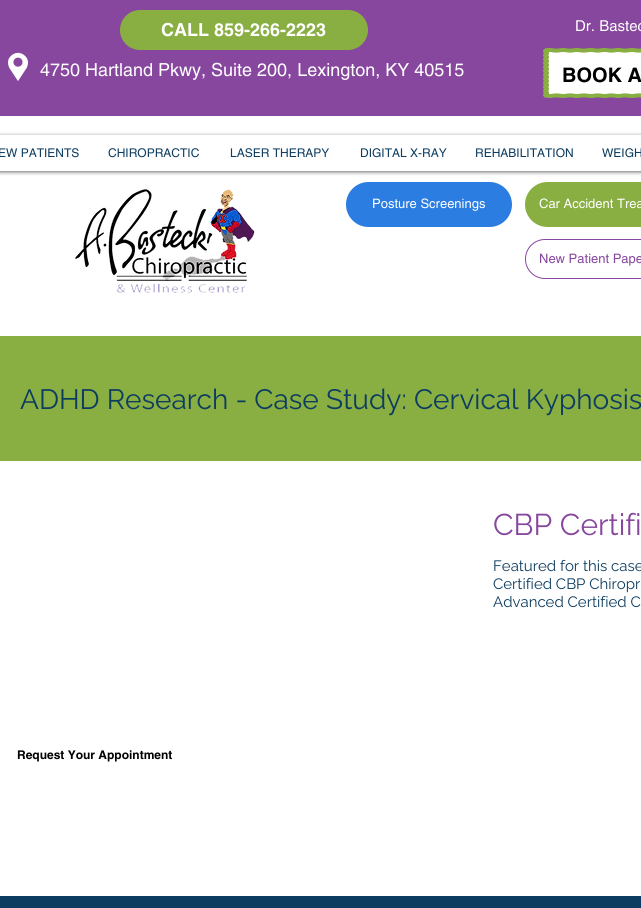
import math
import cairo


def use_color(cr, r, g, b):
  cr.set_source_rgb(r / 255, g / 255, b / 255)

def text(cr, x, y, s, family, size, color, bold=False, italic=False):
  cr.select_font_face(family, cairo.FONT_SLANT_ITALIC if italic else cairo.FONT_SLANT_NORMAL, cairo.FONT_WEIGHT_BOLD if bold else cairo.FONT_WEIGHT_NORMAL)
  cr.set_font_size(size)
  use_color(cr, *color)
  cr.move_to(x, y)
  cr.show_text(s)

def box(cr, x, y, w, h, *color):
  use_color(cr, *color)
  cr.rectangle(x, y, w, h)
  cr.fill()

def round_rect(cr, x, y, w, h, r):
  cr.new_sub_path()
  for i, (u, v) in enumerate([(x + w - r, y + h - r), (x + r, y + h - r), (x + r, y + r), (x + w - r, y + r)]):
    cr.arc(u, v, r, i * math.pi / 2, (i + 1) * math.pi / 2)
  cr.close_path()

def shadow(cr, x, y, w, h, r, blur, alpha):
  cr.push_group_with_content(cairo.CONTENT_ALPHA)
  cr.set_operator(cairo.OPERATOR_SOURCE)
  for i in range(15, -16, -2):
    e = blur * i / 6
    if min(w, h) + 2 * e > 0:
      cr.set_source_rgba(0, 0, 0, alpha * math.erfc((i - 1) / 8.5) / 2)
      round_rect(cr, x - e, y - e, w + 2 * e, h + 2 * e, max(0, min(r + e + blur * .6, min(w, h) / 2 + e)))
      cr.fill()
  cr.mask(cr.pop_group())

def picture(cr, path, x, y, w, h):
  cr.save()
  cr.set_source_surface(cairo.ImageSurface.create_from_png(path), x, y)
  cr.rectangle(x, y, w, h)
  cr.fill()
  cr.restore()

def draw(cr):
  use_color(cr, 255, 255, 255)
  cr.paint()
  box(cr, 0, 0, 641, 116, 135, 71, 158)
  use_color(cr, 137, 174, 66)
  round_rect(cr, 120, 10, 248, 40, 20)
  cr.fill()
  picture(cr, "img_01.png", 8, 52, 20, 29)
  picture(cr, "img_02.png", 543, 48, 98, 50)
  cr.save()
  cr.set_fill_rule(cairo.FILL_RULE_EVEN_ODD)
  cr.new_path()
  cr.move_to(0, 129)
  cr.line_to(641, 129)
  cr.line_to(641, 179)
  cr.line_to(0, 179)
  cr.close_path()
  cr.move_to(-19, 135)
  cr.line_to(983, 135)
  cr.curve_to(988.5, 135, 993, 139.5, 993, 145)
  cr.line_to(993, 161)
  cr.curve_to(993, 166.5, 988.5, 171, 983, 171)
  cr.line_to(-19, 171)
  cr.curve_to(-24.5, 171, -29, 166.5, -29, 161)
  cr.line_to(-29, 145)
  cr.curve_to(-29, 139.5, -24.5, 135, -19, 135)
  cr.close_path()
  cr.clip()
  use_color(cr, 0, 0, 0)
  shadow(cr, -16, 136, 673, 36, 10, 2, 0.6)
  cr.restore()
  picture(cr, "img_03.png", 75, 189, 180, 104)
  use_color(cr, 43, 125, 225)
  round_rect(cr, 346, 182, 166, 45, 22.5)
  cr.fill()
  use_color(cr, 137, 174, 66)
  round_rect(cr, 525, 182, 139, 45, 22.5)
  cr.fill()
  round_rect(cr, 525.5, 239.5, 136, 39, 19.5)
  use_color(cr, 135, 71, 158)
  cr.set_line_width(1)
  cr.stroke()
  box(cr, 0, 336, 641, 125, 137, 174, 66)
  box(cr, 0, 896, 641, 12, 12, 60, 96)
  text(cr, 161, 36, "CALL 859-266-2223", "helvetica", 18, (255, 255, 255), bold=True)
  text(cr, 40, 76, "4750 Hartland Pkwy, Suite 200, Lexington, KY 40515", "helvetica", 18, (255, 255, 255))
  text(cr, 575, 31, "Dr. Bastec", "helvetica", 15, (255, 255, 255))
  text(cr, 562, 82, "BOOK A", "helvetica", 20, (0, 0, 0), bold=True)
  text(cr, -2, 157, "EW PATIENTS", "helvetica", 12, (12, 60, 96))
  text(cr, 108, 157, "CHIROPRACTIC", "helvetica", 12, (12, 60, 96))
  text(cr, 230, 157, "LASER THERAPY", "helvetica", 12, (12, 60, 96))
  text(cr, 360, 157, "DIGITAL X-RAY", "helvetica", 12, (12, 60, 96))
  text(cr, 475, 157, "REHABILITATION", "helvetica", 12, (12, 60, 96))
  text(cr, 602, 157, "WEIGH", "helvetica", 12, (12, 60, 96))
  text(cr, 372, 208, "Posture Screenings", "helvetica", 13, (255, 255, 255))
  text(cr, 539, 208, "Car Accident Trea", "helvetica", 13, (255, 255, 255))
  text(cr, 539, 263, "New Patient Pape", "helvetica", 13, (135, 71, 158))
  text(cr, 20, 409, "ADHD Research - Case Study: Cervical Kyphosis", "Raleway", 28, (12, 60, 96))
  text(cr, 493, 535, "CBP Certifi", "Raleway", 30, (135, 71, 158))
  text(cr, 493, 571, "Featured for this case", "Raleway", 15, (12, 60, 96))
  text(cr, 493, 589, "Certified CBP Chiropr", "Raleway", 15, (12, 60, 96))
  text(cr, 493, 607, "Advanced Certified C", "Raleway", 15, (12, 60, 96))
  text(cr, 17, 759, "Request Your Appointment", "helvetica", 12, (0, 0, 0), bold=True)


surface = cairo.ImageSurface(cairo.FORMAT_RGB24, 641, 908)
cr = cairo.Context(surface)
options = cairo.FontOptions()
options.set_hint_metrics(cairo.HINT_METRICS_OFF)
options.set_hint_style(cairo.HINT_STYLE_NONE)
cr.set_font_options(options)
cr.set_miter_limit(4)
draw(cr)
surface.write_to_png("out.png")
